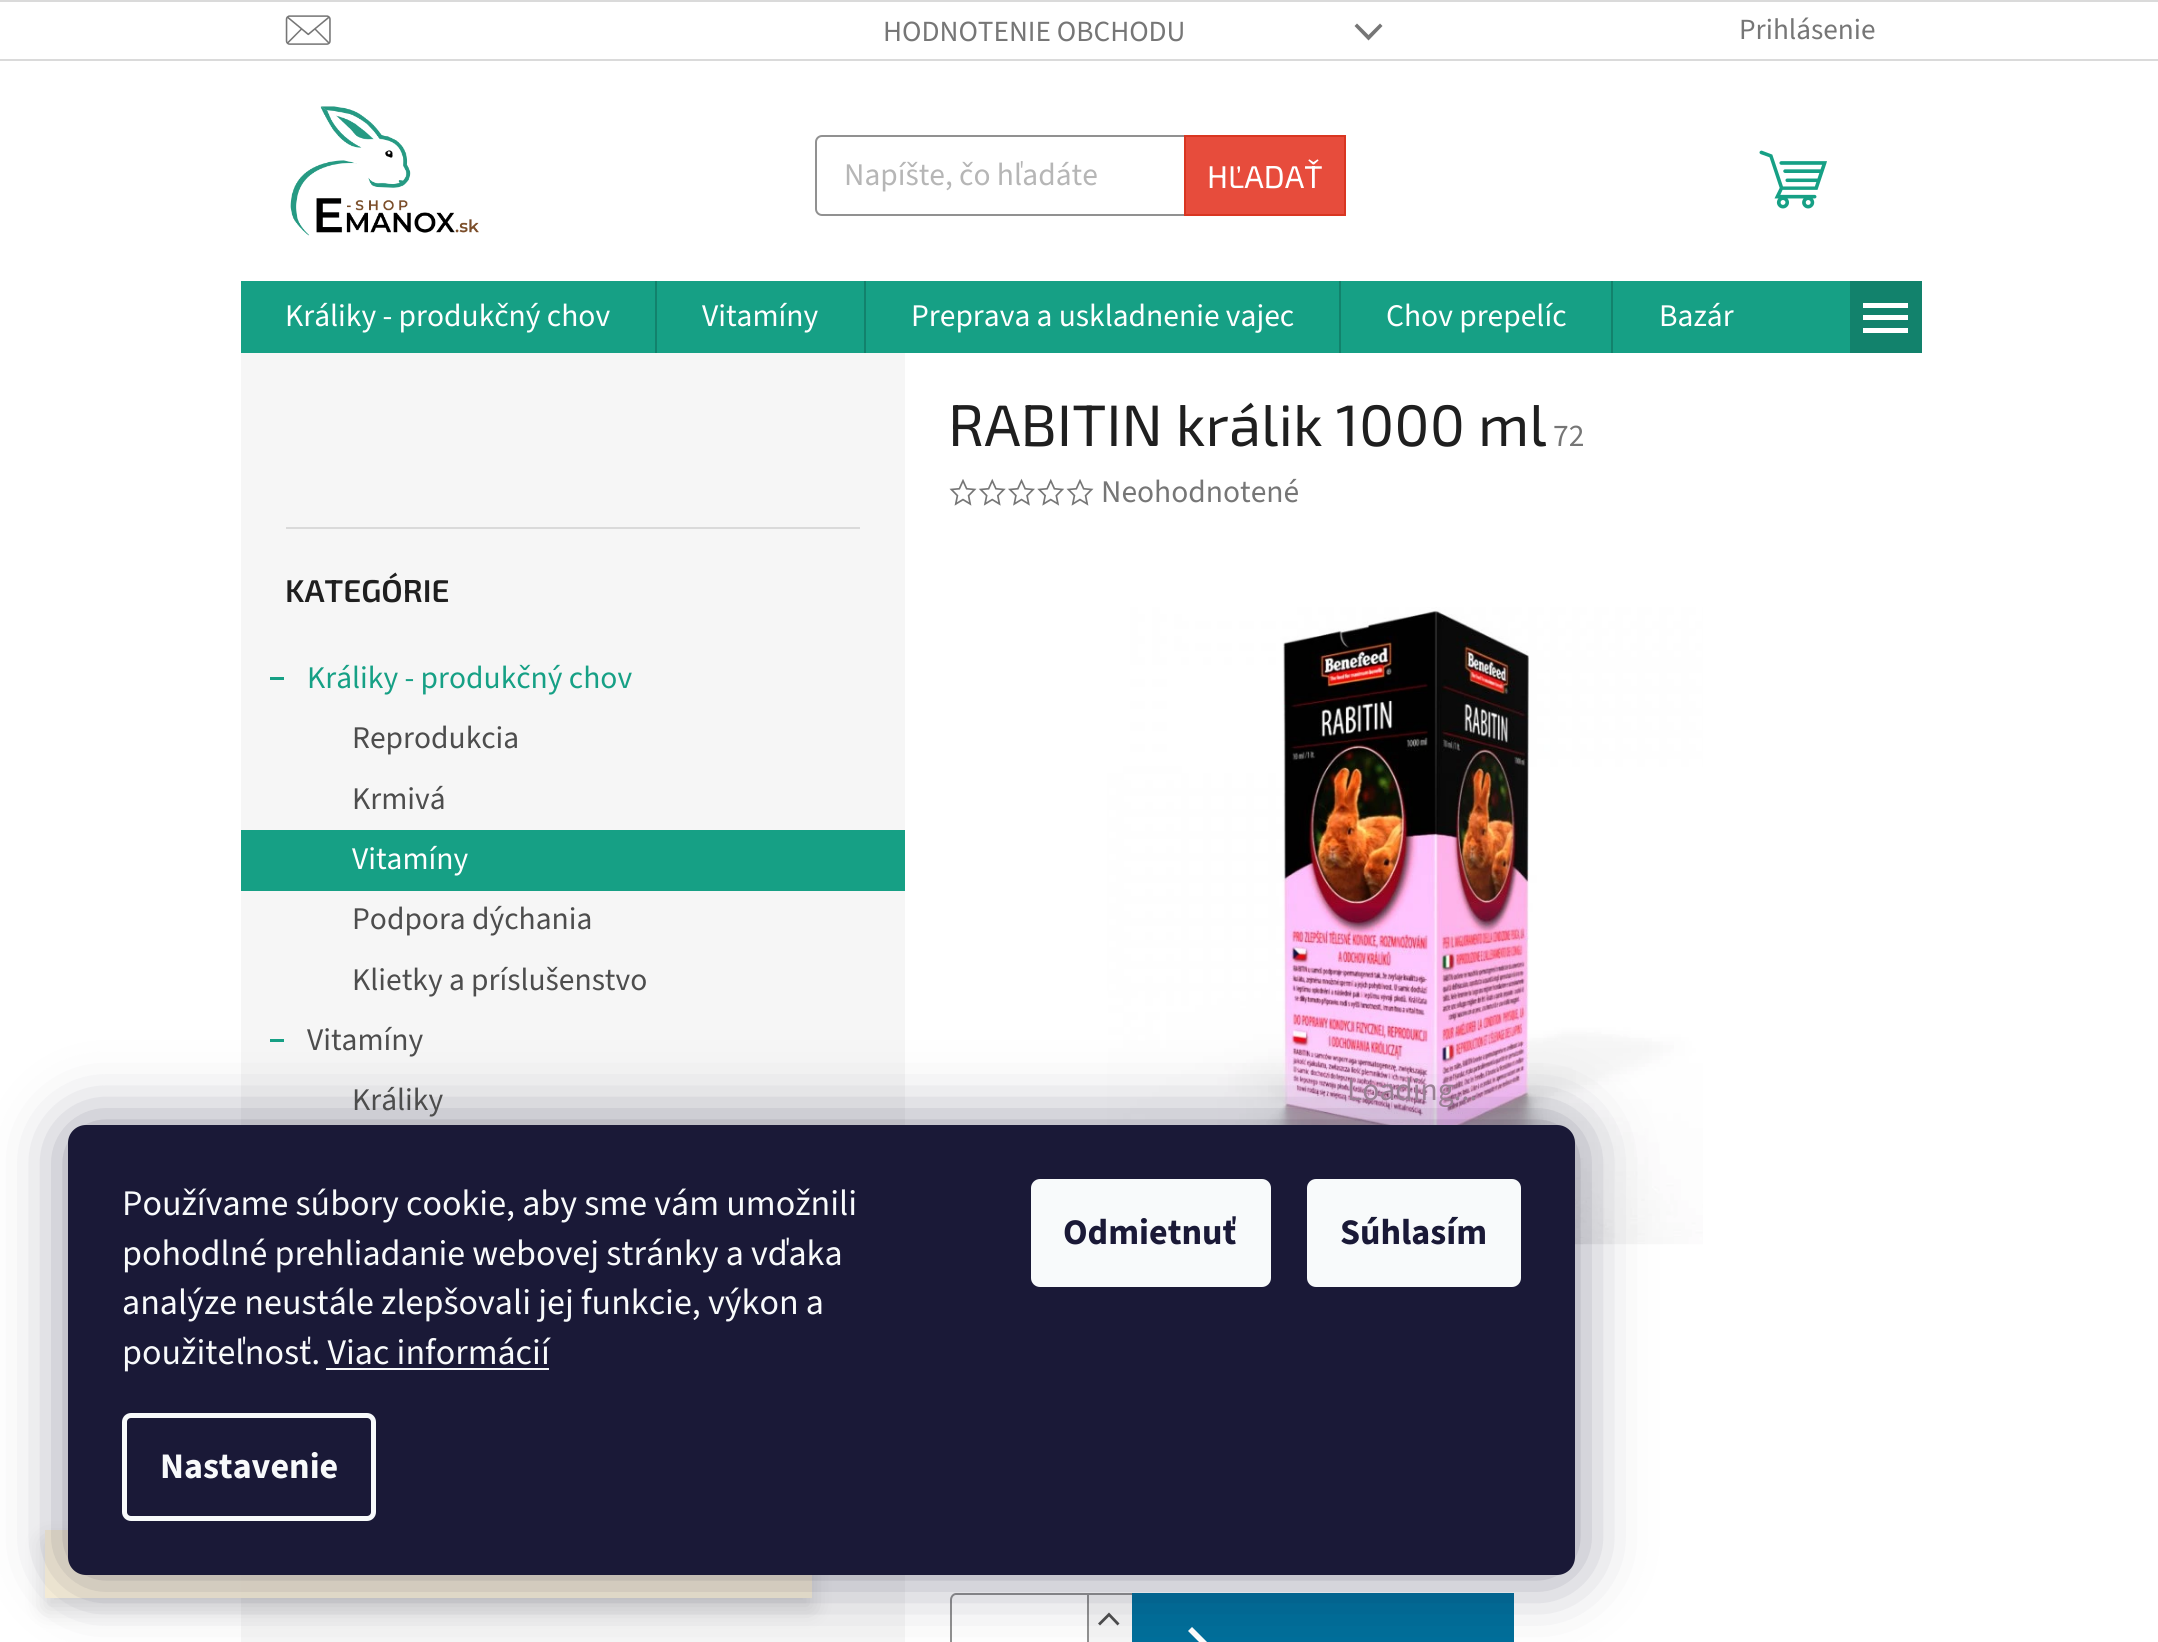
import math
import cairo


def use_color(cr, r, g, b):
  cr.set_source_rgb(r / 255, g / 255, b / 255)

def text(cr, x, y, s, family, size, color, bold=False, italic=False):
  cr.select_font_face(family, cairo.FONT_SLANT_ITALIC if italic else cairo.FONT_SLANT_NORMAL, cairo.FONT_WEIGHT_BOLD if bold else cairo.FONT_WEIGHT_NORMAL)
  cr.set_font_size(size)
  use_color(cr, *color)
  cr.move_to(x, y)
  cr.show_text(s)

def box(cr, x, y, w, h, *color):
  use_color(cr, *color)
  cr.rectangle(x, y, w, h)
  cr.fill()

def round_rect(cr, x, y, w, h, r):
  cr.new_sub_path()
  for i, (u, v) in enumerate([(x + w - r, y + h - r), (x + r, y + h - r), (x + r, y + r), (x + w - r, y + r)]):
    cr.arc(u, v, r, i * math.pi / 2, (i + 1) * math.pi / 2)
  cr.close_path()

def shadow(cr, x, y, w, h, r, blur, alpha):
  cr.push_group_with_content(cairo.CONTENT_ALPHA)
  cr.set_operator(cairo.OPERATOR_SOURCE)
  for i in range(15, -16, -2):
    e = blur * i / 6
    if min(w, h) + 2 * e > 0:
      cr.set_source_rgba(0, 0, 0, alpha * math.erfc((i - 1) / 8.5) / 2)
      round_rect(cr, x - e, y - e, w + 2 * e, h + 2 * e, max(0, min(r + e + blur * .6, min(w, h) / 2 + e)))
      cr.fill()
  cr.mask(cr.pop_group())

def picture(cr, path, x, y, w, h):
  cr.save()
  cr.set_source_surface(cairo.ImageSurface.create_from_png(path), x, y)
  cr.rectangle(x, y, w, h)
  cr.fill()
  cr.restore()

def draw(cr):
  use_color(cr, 255, 255, 255)
  cr.paint()
  box(cr, 0, 0, 2158, 2, 218, 218, 218)
  box(cr, 0, 59, 2158, 2, 218, 218, 218)
  picture(cr, "img_01.png", 285, 15, 46, 30)
  use_color(cr, 118, 118, 118)
  cr.new_path()
  cr.move_to(1354.5, 26)
  cr.line_to(1357, 23.5)
  cr.line_to(1368.5, 35)
  cr.line_to(1380, 23.5)
  cr.line_to(1382.5, 26)
  cr.line_to(1368.5, 40.5)
  cr.close_path()
  cr.fill()
  picture(cr, "img_02.png", 290, 106, 189, 130)
  round_rect(cr, 816, 136, 529, 79, 6)
  use_color(cr, 145, 145, 145)
  cr.stroke()
  use_color(cr, 231, 76, 60)
  cr.rectangle(1185, 136, 160, 79)
  cr.fill_preserve()
  use_color(cr, 217, 54, 33)
  cr.stroke()
  picture(cr, "img_03.png", 1759, 150, 68, 59)
  box(cr, 241, 281, 1609, 72, 22, 160, 133)
  box(cr, 655, 281, 2, 72, 18, 130, 108)
  box(cr, 864, 281, 2, 72, 18, 130, 108)
  box(cr, 1339, 281, 2, 72, 18, 130, 108)
  box(cr, 1611, 281, 2, 72, 18, 130, 108)
  box(cr, 1850, 281, 72, 72, 18, 130, 108)
  use_color(cr, 255, 255, 255)
  cr.new_path()
  cr.move_to(1863, 333)
  cr.line_to(1908, 333)
  cr.line_to(1908, 328)
  cr.line_to(1863, 328)
  cr.close_path()
  cr.move_to(1863, 320)
  cr.line_to(1908, 320)
  cr.line_to(1908, 315)
  cr.line_to(1863, 315)
  cr.close_path()
  cr.move_to(1863, 303)
  cr.line_to(1863, 308)
  cr.line_to(1908, 308)
  cr.line_to(1908, 303)
  cr.close_path()
  cr.fill()
  box(cr, 241, 353, 664, 1289, 246, 246, 246)
  box(cr, 286, 527, 574, 2, 218, 218, 218)
  box(cr, 270, 677, 14, 3, 22, 160, 133)
  box(cr, 241, 830, 664, 61, 22, 160, 133)
  box(cr, 270, 1039, 14, 3, 22, 160, 133)
  picture(cr, "img_04.png", 949, 479, 28, 27)
  picture(cr, "img_05.png", 978, 478, 28, 28)
  picture(cr, "img_06.png", 1008, 478, 27, 28)
  picture(cr, "img_07.png", 1037, 478, 28, 28)
  picture(cr, "img_04.png", 1066, 479, 28, 27)
  picture(cr, "img_08.png", 1107, 607, 596, 638)
  use_color(cr, 145, 145, 145)
  cr.set_fill_rule(cairo.FILL_RULE_EVEN_ODD)
  cr.new_path()
  cr.move_to(956, 1593)
  cr.line_to(1132, 1593)
  cr.line_to(1132, 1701)
  cr.line_to(956, 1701)
  cr.curve_to(953, 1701, 950, 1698, 950, 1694)
  cr.line_to(950, 1600)
  cr.curve_to(950, 1596, 953, 1593, 956, 1593)
  cr.close_path()
  cr.move_to(956, 1595)
  cr.line_to(1132, 1595)
  cr.line_to(1132, 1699)
  cr.line_to(956, 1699)
  cr.curve_to(954, 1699, 952, 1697, 952, 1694)
  cr.line_to(952, 1600)
  cr.curve_to(952, 1597, 954, 1595, 956, 1595)
  cr.close_path()
  cr.fill()
  box(cr, 1089, 1595, 43, 47, 246, 246, 246)
  box(cr, 1087, 1595, 2, 47, 145, 145, 145)
  use_color(cr, 77, 77, 77)
  cr.set_fill_rule(cairo.FILL_RULE_WINDING)
  cr.new_path()
  cr.move_to(1098, 1623.5)
  cr.line_to(1100, 1625.5)
  cr.line_to(1109, 1616.5)
  cr.line_to(1117.5, 1625.5)
  cr.line_to(1119.5, 1623.5)
  cr.line_to(1109, 1612.5)
  cr.close_path()
  cr.fill()
  box(cr, 1132, 1593, 382, 49, 0, 111, 155)
  use_color(cr, 255, 255, 255)
  cr.new_path()
  cr.move_to(1192, 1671)
  cr.line_to(1188, 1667)
  cr.line_to(1206, 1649)
  cr.line_to(1188, 1631)
  cr.line_to(1192, 1627)
  cr.line_to(1214, 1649)
  cr.close_path()
  cr.fill()
  cr.save()
  cr.set_fill_rule(cairo.FILL_RULE_EVEN_ODD)
  cr.new_path()
  cr.move_to(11, 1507)
  cr.line_to(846, 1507)
  cr.line_to(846, 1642)
  cr.line_to(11, 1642)
  cr.close_path()
  cr.move_to(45, 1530)
  cr.line_to(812, 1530)
  cr.line_to(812, 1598)
  cr.line_to(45, 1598)
  cr.close_path()
  cr.clip()
  use_color(cr, 0, 0, 0)
  shadow(cr, 45, 1541, 767, 68, 0, 11, 0.14)
  cr.restore()
  cr.set_source_rgba(0.992, 0.953, 0.855, 0.9)
  cr.rectangle(45, 1530, 767, 68)
  cr.fill()
  use_color(cr, 27, 25, 57)
  shadow(cr, 68, 1125, 1507, 450, 18, 34, 0.5)
  use_color(cr, 26, 25, 55)
  round_rect(cr, 68, 1125, 1507, 450, 18)
  cr.fill()
  box(cr, 326, 1368, 223, 2, 248, 250, 251)
  round_rect(cr, 124.5, 1415.5, 249, 103, 6.5)
  cr.set_line_width(5)
  cr.stroke()
  round_rect(cr, 1031, 1179, 240, 108, 9)
  cr.fill()
  round_rect(cr, 1307, 1179, 214, 108, 9)
  cr.fill()
  text(cr, 883, 41, "HODNOTENIE OBCHODU", "Source Sans 3", 29.25, (118, 118, 118))
  text(cr, 1739, 39, "Prihlásenie", "Source Sans 3", 29.25, (118, 118, 118))
  text(cr, 844, 185, "Napíšte, čo hľadáte", "Source Sans 3", 31.5, (182, 182, 182))
  text(cr, 1207, 188, "HĽADAŤ", "Exo 2", 31.5, (255, 255, 255))
  text(cr, 285, 326, "Králiky - produkčný chov", "Source Sans 3", 31.5, (255, 255, 255))
  text(cr, 702, 326, "Vitamíny", "Source Sans 3", 31.5, (255, 255, 255))
  text(cr, 911, 326, "Preprava a uskladnenie vajec", "Source Sans 3", 31.5, (255, 255, 255))
  text(cr, 1386, 326, "Chov prepelíc", "Source Sans 3", 31.5, (255, 255, 255))
  text(cr, 1659, 326, "Bazár", "Source Sans 3", 31.5, (255, 255, 255))
  text(cr, 285, 602, "KATEGÓRIE", "Exo 2 SemiBold", 31.5, (31, 31, 31))
  text(cr, 307, 688, "Králiky - produkčný chov", "Source Sans 3", 31.5, (22, 160, 133))
  text(cr, 352, 748, "Reprodukcia", "Source Sans 3", 31.5, (77, 77, 77))
  text(cr, 352, 809, "Krmivá", "Source Sans 3", 31.5, (77, 77, 77))
  text(cr, 352, 869, "Vitamíny", "Source Sans 3", 31.5, (255, 255, 255))
  text(cr, 352, 929, "Podpora dýchania", "Source Sans 3", 31.5, (77, 77, 77))
  text(cr, 352, 990, "Klietky a príslušenstvo", "Source Sans 3", 31.5, (77, 77, 77))
  text(cr, 307, 1050, "Vitamíny", "Source Sans 3", 31.5, (77, 77, 77))
  text(cr, 352, 1110, "Králiky", "Source Sans 3", 31.5, (77, 77, 77))
  text(cr, 948, 446, "RABITIN králik 1000 ml", "Exo 2", 58.5, (31, 31, 31))
  text(cr, 1553, 446, "72", "Source Sans 3", 31.5, (118, 118, 118))
  text(cr, 1101, 502, "Neohodnotené", "Source Sans 3", 31.5, (118, 118, 118))
  text(cr, 1347, 1100, "Loading...", "Source Sans 3", 31.5, (153, 128, 148))
  text(cr, 122, 1215, "Používame súbory cookie, aby sme vám umožnili", "Source Sans 3", 36, (248, 250, 251))
  text(cr, 122, 1265, "pohodlné prehliadanie webovej stránky a vďaka", "Source Sans 3", 36, (248, 250, 251))
  text(cr, 122, 1314, "analýze neustále zlepšovali jej funkcie, výkon a", "Source Sans 3", 36, (248, 250, 251))
  text(cr, 122, 1364, "použiteľnosť. Viac informácií", "Source Sans 3", 36, (248, 250, 251))
  text(cr, 160, 1478, "Nastavenie", "Source Sans 3", 36, (248, 250, 251), bold=True)
  text(cr, 1063, 1244, "Odmietnuť", "Source Sans 3", 36, (26, 25, 55), bold=True)
  text(cr, 1340, 1244, "Súhlasím", "Source Sans 3", 36, (26, 25, 55), bold=True)


surface = cairo.ImageSurface(cairo.FORMAT_RGB24, 2158, 1642)
cr = cairo.Context(surface)
options = cairo.FontOptions()
options.set_hint_metrics(cairo.HINT_METRICS_OFF)
options.set_hint_style(cairo.HINT_STYLE_NONE)
cr.set_font_options(options)
cr.set_miter_limit(4)
draw(cr)
surface.write_to_png("out.png")
